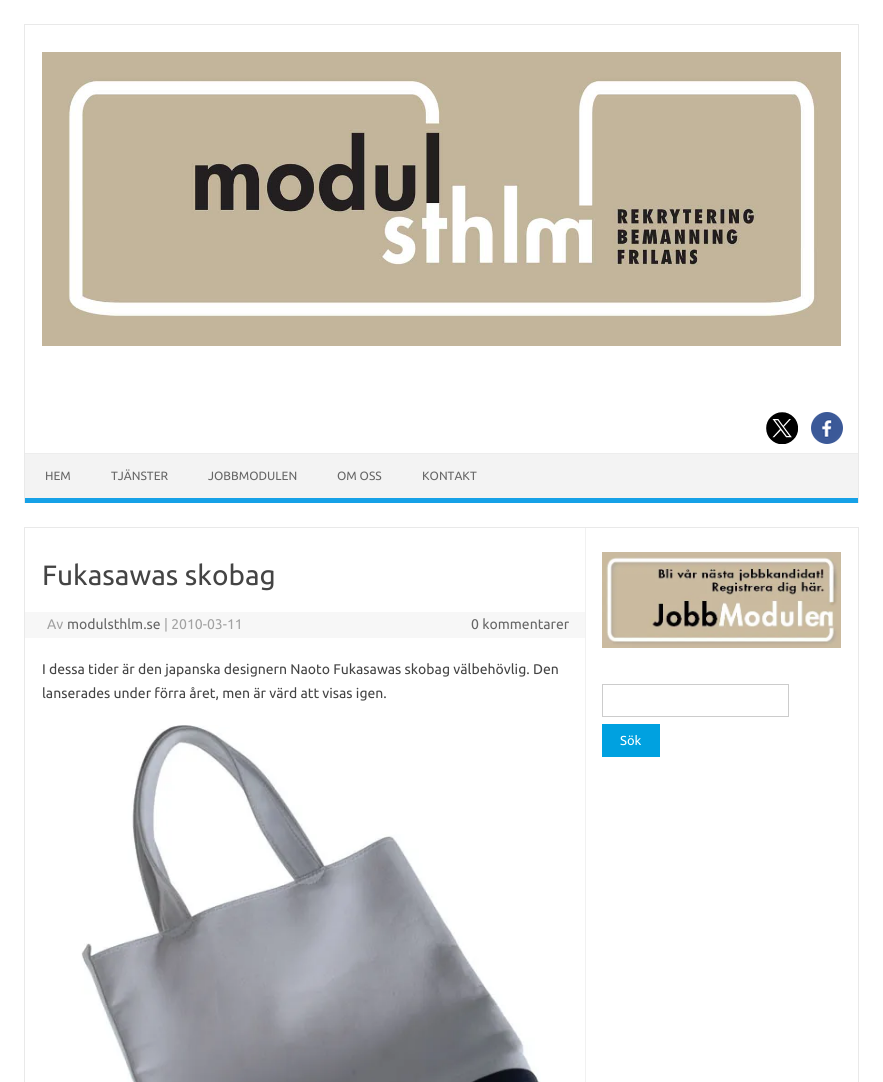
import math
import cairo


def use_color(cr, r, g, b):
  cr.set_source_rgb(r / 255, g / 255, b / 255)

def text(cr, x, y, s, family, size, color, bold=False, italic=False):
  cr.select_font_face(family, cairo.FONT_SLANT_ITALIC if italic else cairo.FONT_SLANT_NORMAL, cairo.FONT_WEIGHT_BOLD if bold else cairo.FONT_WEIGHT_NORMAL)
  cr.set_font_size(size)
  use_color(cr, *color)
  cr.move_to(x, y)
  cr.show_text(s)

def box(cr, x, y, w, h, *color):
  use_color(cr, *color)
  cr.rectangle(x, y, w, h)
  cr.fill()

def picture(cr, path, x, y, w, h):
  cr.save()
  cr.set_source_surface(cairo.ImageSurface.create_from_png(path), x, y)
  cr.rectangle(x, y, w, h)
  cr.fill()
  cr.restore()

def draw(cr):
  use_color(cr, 255, 255, 255)
  cr.paint()
  box(cr, 24, 24, 835, 1, 233, 233, 233)
  box(cr, 858, 24, 1, 479, 233, 233, 233)
  box(cr, 24, 24, 1, 479, 233, 233, 233)
  picture(cr, "img_01.png", 42, 52, 799, 294)
  picture(cr, "img_02.png", 766, 412, 32, 32)
  picture(cr, "img_03.png", 811, 412, 32, 32)
  box(cr, 25, 454, 833, 44, 243, 243, 243)
  box(cr, 25, 453, 833, 1, 237, 237, 237)
  box(cr, 25, 498, 833, 5, 22, 161, 231)
  cr.rectangle(24.5, 527.5, 834, 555)
  use_color(cr, 233, 233, 233)
  cr.set_line_width(1)
  cr.stroke()
  box(cr, 585, 528, 1, 554, 241, 241, 241)
  box(cr, 25, 612, 560, 26, 247, 247, 247)
  picture(cr, "img_04.png", 81, 725, 460, 357)
  picture(cr, "img_05.png", 602, 552, 239, 96)
  cr.rectangle(602.5, 684.5, 186, 32)
  use_color(cr, 204, 204, 204)
  cr.stroke()
  box(cr, 602, 724, 58, 33, 0, 161, 224)
  text(cr, 45, 480, "HEM", "Ubuntu", 12, (102, 102, 102))
  text(cr, 111, 480, "TJÄNSTER", "Ubuntu", 12, (102, 102, 102))
  text(cr, 208, 480, "JOBBMODULEN", "Ubuntu", 12, (102, 102, 102))
  text(cr, 337, 480, "OM OSS", "Ubuntu", 12, (102, 102, 102))
  text(cr, 422, 480, "KONTAKT", "Ubuntu", 12, (102, 102, 102))
  text(cr, 42, 585, "Fukasawas skobag", "Ubuntu", 28, (68, 68, 68))
  text(cr, 47, 629, "Av", "Ubuntu", 14, (162, 162, 162))
  text(cr, 67, 629, "modulsthlm.se", "Ubuntu", 14, (102, 102, 102))
  text(cr, 164, 629, "| 2010-03-11", "Ubuntu", 14, (162, 162, 162))
  text(cr, 471, 629, "0 kommentarer", "Ubuntu", 14, (102, 102, 102))
  text(cr, 42, 674, "I dessa tider är den japanska designern Naoto Fukasawas skobag välbehövlig. Den", "Ubuntu", 14, (68, 68, 68))
  text(cr, 42, 698, "lanserades under förra året, men är värd att visas igen.", "Ubuntu", 14, (68, 68, 68))
  text(cr, 620, 745, "Sök", "Ubuntu", 13, (255, 255, 255))


surface = cairo.ImageSurface(cairo.FORMAT_RGB24, 883, 1082)
cr = cairo.Context(surface)
options = cairo.FontOptions()
options.set_hint_metrics(cairo.HINT_METRICS_OFF)
options.set_hint_style(cairo.HINT_STYLE_NONE)
cr.set_font_options(options)
cr.set_miter_limit(4)
draw(cr)
surface.write_to_png("out.png")
